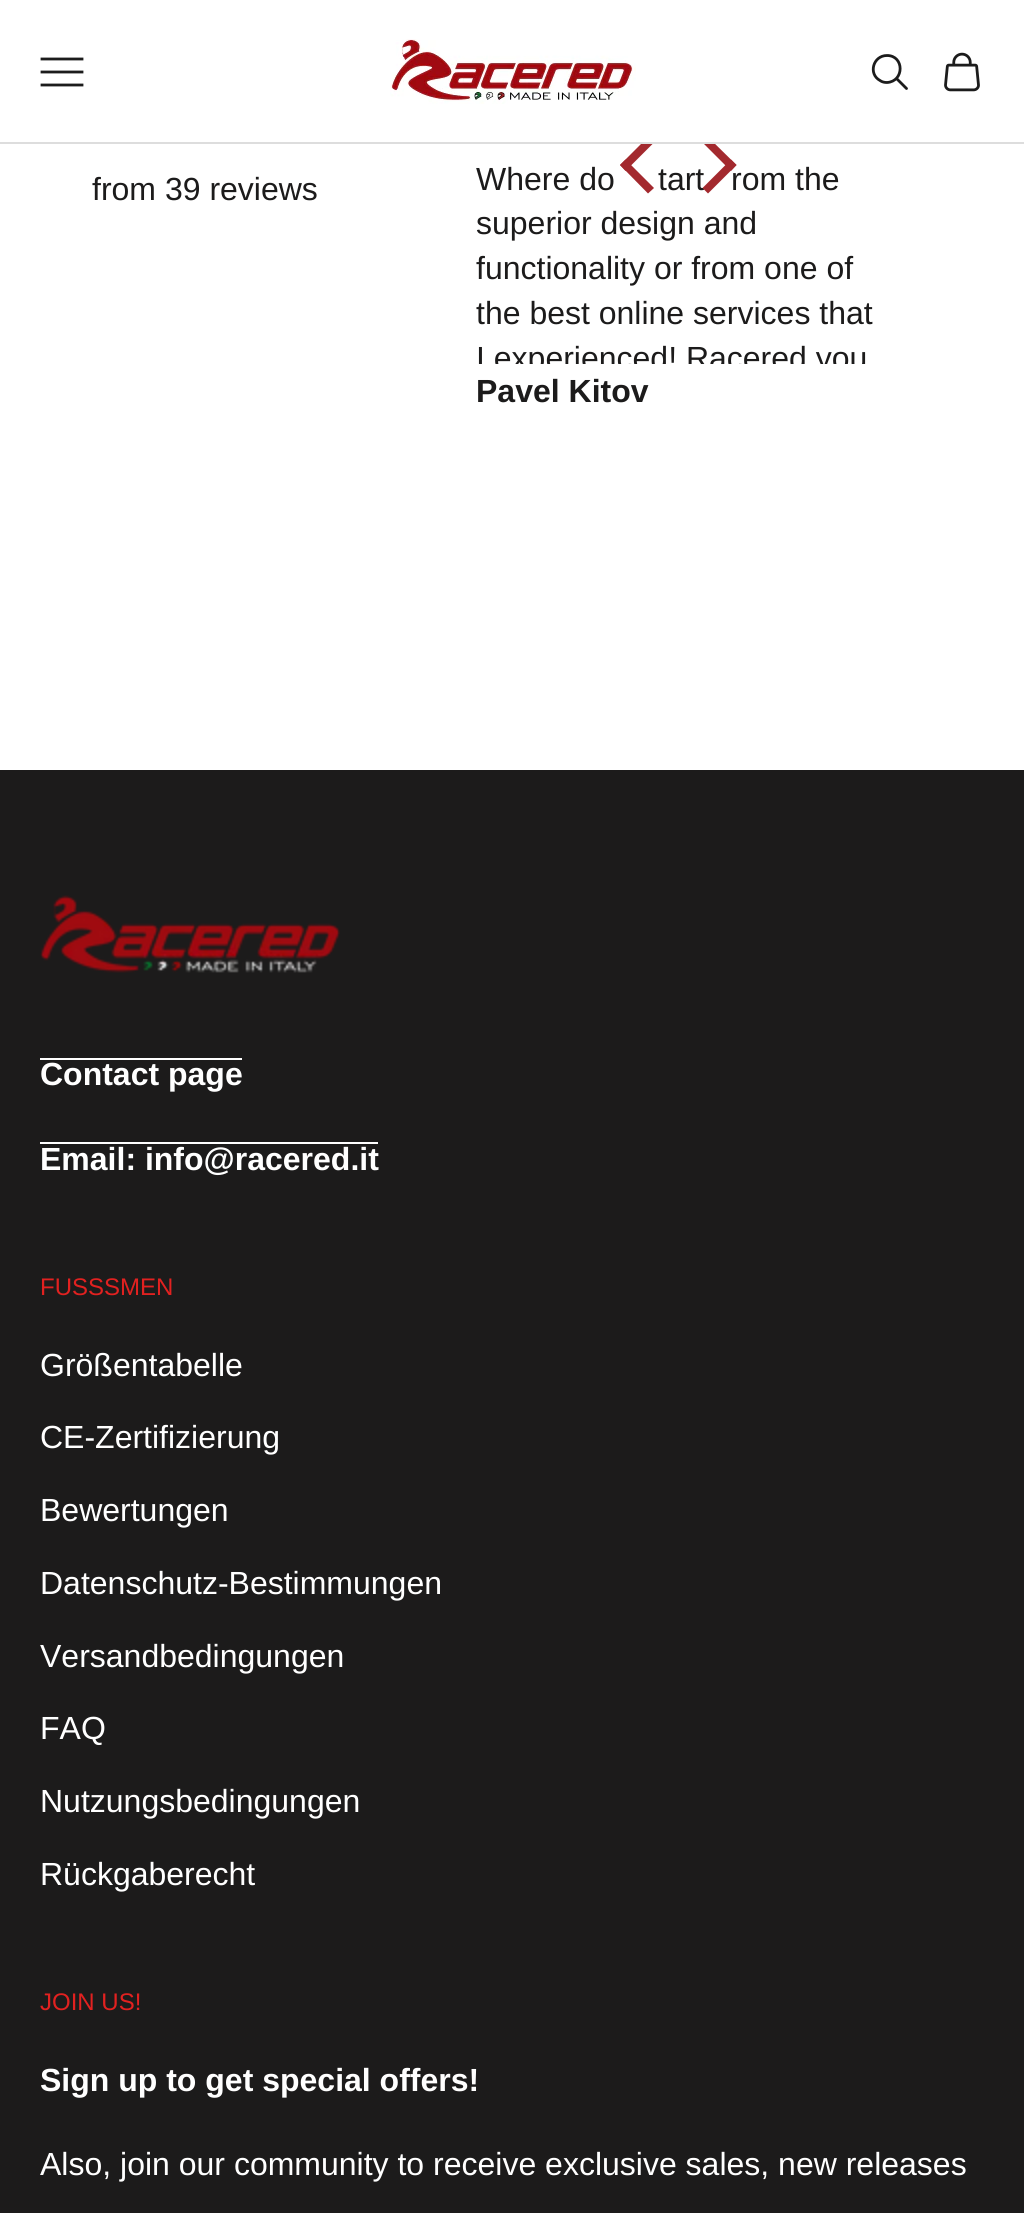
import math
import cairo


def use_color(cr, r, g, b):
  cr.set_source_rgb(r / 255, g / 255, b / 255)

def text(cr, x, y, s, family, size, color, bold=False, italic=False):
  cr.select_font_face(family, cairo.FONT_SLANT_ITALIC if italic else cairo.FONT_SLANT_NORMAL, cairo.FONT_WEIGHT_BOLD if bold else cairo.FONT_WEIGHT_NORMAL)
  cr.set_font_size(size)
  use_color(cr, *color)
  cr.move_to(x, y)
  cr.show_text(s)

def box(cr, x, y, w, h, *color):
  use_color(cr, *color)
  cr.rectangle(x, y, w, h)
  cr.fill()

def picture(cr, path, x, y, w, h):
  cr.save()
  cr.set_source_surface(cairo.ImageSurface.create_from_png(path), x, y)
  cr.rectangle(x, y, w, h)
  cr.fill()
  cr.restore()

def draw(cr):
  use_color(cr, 255, 255, 255)
  cr.paint()
  cr.new_path()
  cr.move_to(42, 85)
  cr.line_to(82, 85)
  cr.move_to(42, 72)
  cr.line_to(82, 72)
  cr.move_to(42, 59)
  cr.line_to(82, 59)
  use_color(cr, 28, 28, 28)
  cr.set_line_width(2.8)
  cr.set_line_cap(cairo.LINE_CAP_SQUARE)
  cr.stroke()
  picture(cr, "img_01.png", 390, 39, 246, 65)
  cr.new_path()
  cr.move_to(887, 55.5)
  cr.curve_to(873, 55.5, 868, 74, 880, 80.5)
  cr.curve_to(882, 82, 884.5, 82.5, 887, 82.5)
  cr.curve_to(904.5, 81.5, 904.5, 55.5, 887, 55.5)
  cr.close_path()
  cr.set_line_cap(cairo.LINE_CAP_BUTT)
  cr.stroke()
  cr.new_path()
  cr.move_to(897, 79)
  cr.line_to(906.5, 88.5)
  cr.set_line_cap(cairo.LINE_CAP_ROUND)
  cr.stroke()
  picture(cr, "img_02.png", 944, 52, 36, 40)
  use_color(cr, 163, 41, 46)
  cr.new_path()
  cr.move_to(620, 165)
  cr.line_to(648, 137)
  cr.line_to(654, 142.5)
  cr.line_to(625.5, 171)
  cr.close_path()
  cr.fill()
  cr.new_path()
  cr.move_to(620, 165)
  cr.line_to(625.5, 159.5)
  cr.line_to(654, 188)
  cr.line_to(648, 193.5)
  cr.close_path()
  cr.fill()
  box(cr, 0, 770, 1024, 1443, 28, 27, 27)
  picture(cr, "img_03.png", 40, 895, 300, 78)
  box(cr, 40, 1058, 202, 2, 255, 255, 255)
  box(cr, 40, 1142, 338, 2, 255, 255, 255)
  text(cr, 92, 200, "from 39 reviews", "Liberation Sans", 32, (28, 27, 27))
  text(cr, 476, 190, "Where do", "Liberation Sans", 32, (28, 27, 27))
  text(cr, 658, 190, "tart", "Liberation Sans", 32, (28, 27, 27))
  text(cr, 731, 190, "rom the", "Liberation Sans", 32, (28, 27, 27))
  use_color(cr, 163, 41, 46)
  cr.new_path()
  cr.move_to(702.5, 142.5)
  cr.line_to(708, 137)
  cr.line_to(736.5, 165)
  cr.line_to(731, 171)
  cr.close_path()
  cr.fill()
  box(cr, 0, 142, 1024, 2, 221, 221, 221)
  box(cr, 643, 137, 70, 5, 255, 255, 255)
  use_color(cr, 163, 41, 46)
  cr.new_path()
  cr.move_to(702.5, 188)
  cr.line_to(731, 159.5)
  cr.line_to(736.5, 165)
  cr.line_to(708, 193.5)
  cr.close_path()
  cr.fill()
  text(cr, 476, 234, "superior design and", "Liberation Sans", 32, (28, 27, 27))
  text(cr, 476, 279, "functionality or from one of", "Liberation Sans", 32, (28, 27, 27))
  text(cr, 476, 324, "the best online services that", "Liberation Sans", 32, (28, 27, 27))
  cr.save()
  cr.rectangle(452, 6, 452, 358)
  cr.clip()
  text(cr, 476, 369, "I experienced! Racered you", "Liberation Sans", 32, (28, 27, 27))
  cr.restore()
  text(cr, 476, 402, "Pavel Kitov", "Liberation Sans", 32, (28, 27, 27), bold=True)
  text(cr, 40, 1085, "Contact page", "Liberation Sans", 32, (255, 255, 255), bold=True)
  text(cr, 40, 1170, "Email: info@racered.it", "Liberation Sans", 32, (255, 255, 255), bold=True)
  text(cr, 40, 1295, "FUSSSMEN", "Liberation Sans", 24, (226, 33, 32))
  text(cr, 40, 1376, "Größentabelle", "Liberation Sans", 32, (255, 255, 255))
  text(cr, 40, 1448, "CE-Zertifizierung", "Liberation Sans", 32, (255, 255, 255))
  text(cr, 40, 1521, "Bewertungen", "Liberation Sans", 32, (255, 255, 255))
  text(cr, 40, 1594, "Datenschutz-Bestimmungen", "Liberation Sans", 32, (255, 255, 255))
  text(cr, 40, 1667, "Versandbedingungen", "Liberation Sans", 32, (255, 255, 255))
  text(cr, 40, 1739, "FAQ", "Liberation Sans", 32, (255, 255, 255))
  text(cr, 40, 1812, "Nutzungsbedingungen", "Liberation Sans", 32, (255, 255, 255))
  text(cr, 40, 1885, "Rückgaberecht", "Liberation Sans", 32, (255, 255, 255))
  text(cr, 40, 2010, "JOIN US!", "Liberation Sans", 24, (226, 33, 32))
  text(cr, 40, 2091, "Sign up to get special offers!", "Liberation Sans", 32, (255, 255, 255), bold=True)
  text(cr, 40, 2175, "Also, join our community to receive exclusive sales, new releases", "Liberation Sans", 32, (255, 255, 255))


surface = cairo.ImageSurface(cairo.FORMAT_RGB24, 1024, 2213)
cr = cairo.Context(surface)
options = cairo.FontOptions()
options.set_hint_metrics(cairo.HINT_METRICS_OFF)
options.set_hint_style(cairo.HINT_STYLE_NONE)
cr.set_font_options(options)
cr.set_miter_limit(4)
draw(cr)
surface.write_to_png("out.png")
